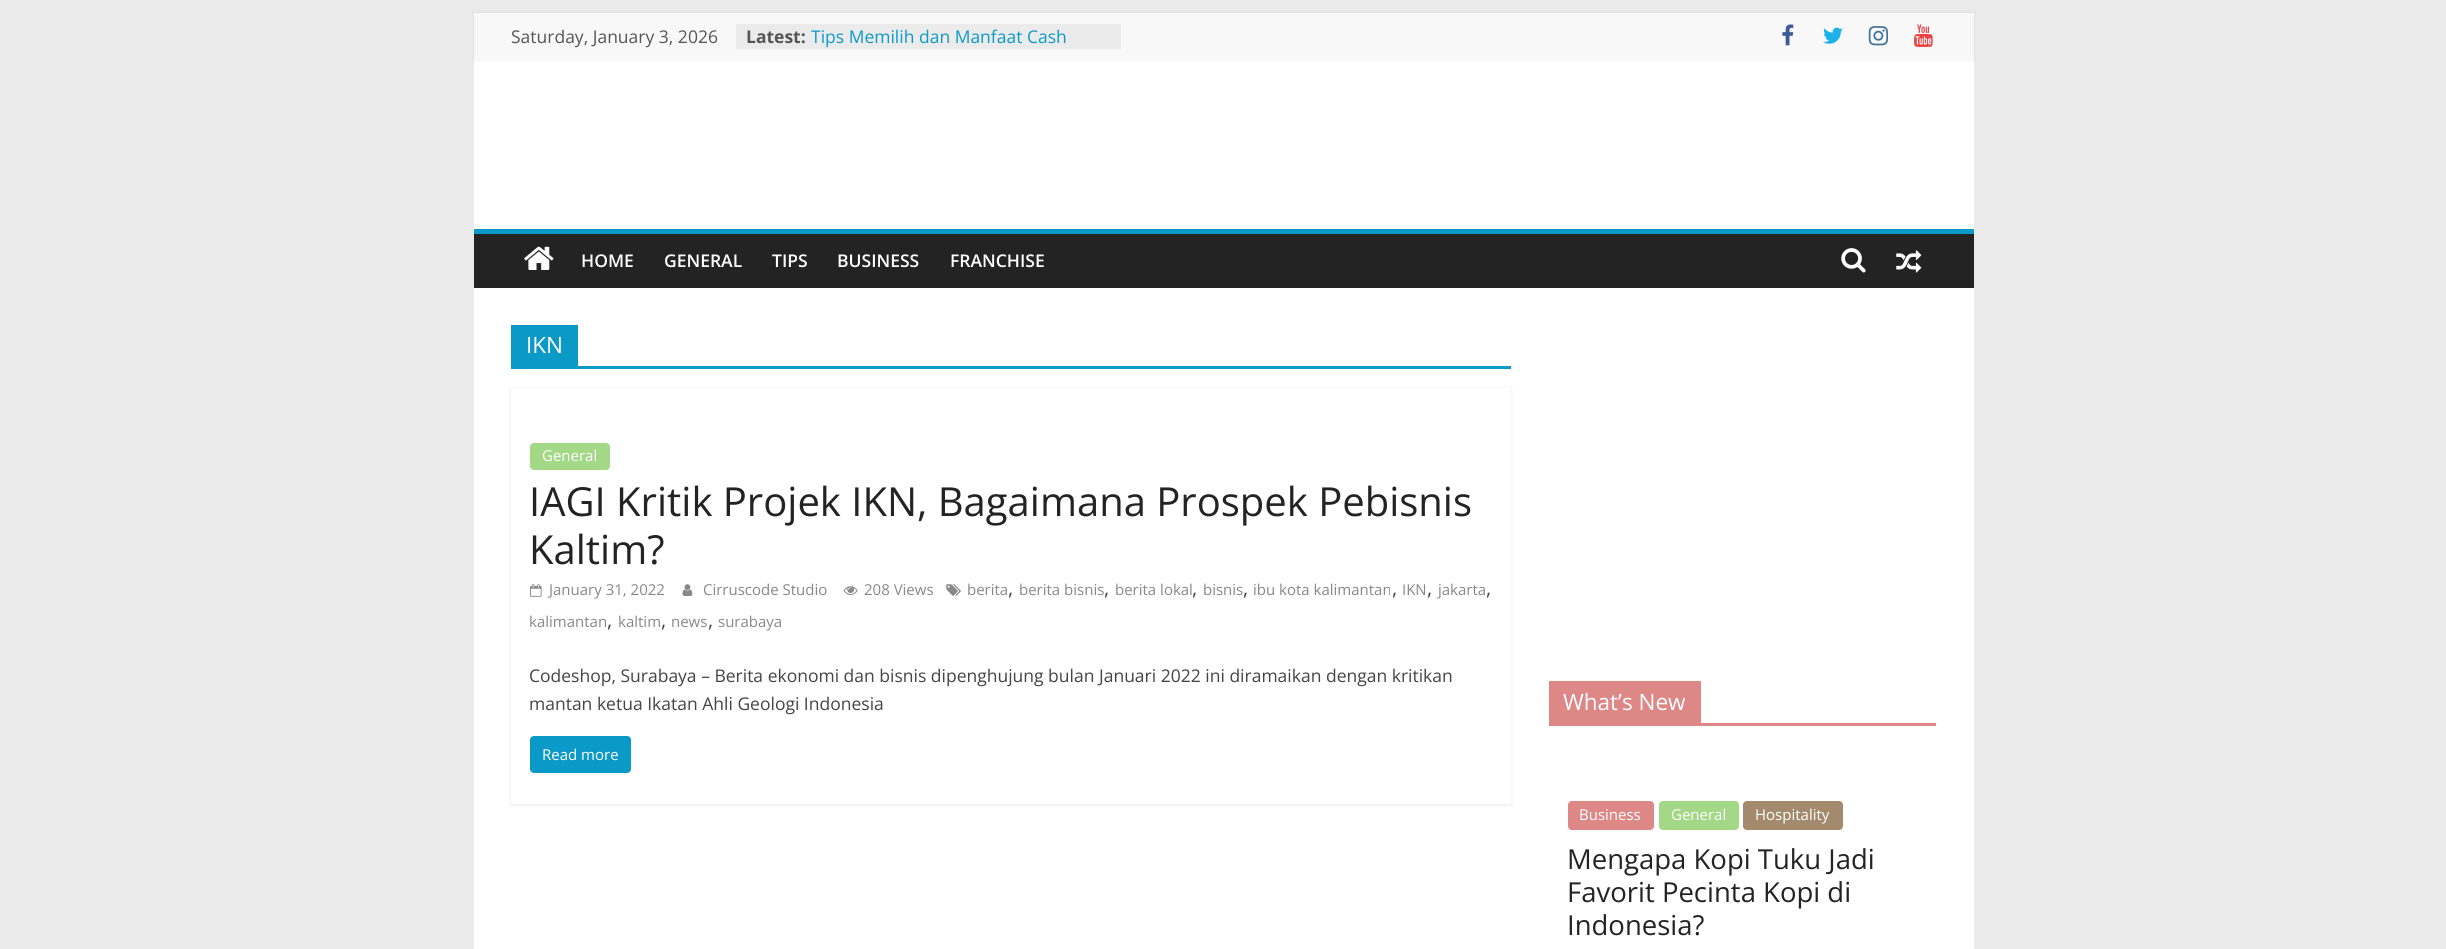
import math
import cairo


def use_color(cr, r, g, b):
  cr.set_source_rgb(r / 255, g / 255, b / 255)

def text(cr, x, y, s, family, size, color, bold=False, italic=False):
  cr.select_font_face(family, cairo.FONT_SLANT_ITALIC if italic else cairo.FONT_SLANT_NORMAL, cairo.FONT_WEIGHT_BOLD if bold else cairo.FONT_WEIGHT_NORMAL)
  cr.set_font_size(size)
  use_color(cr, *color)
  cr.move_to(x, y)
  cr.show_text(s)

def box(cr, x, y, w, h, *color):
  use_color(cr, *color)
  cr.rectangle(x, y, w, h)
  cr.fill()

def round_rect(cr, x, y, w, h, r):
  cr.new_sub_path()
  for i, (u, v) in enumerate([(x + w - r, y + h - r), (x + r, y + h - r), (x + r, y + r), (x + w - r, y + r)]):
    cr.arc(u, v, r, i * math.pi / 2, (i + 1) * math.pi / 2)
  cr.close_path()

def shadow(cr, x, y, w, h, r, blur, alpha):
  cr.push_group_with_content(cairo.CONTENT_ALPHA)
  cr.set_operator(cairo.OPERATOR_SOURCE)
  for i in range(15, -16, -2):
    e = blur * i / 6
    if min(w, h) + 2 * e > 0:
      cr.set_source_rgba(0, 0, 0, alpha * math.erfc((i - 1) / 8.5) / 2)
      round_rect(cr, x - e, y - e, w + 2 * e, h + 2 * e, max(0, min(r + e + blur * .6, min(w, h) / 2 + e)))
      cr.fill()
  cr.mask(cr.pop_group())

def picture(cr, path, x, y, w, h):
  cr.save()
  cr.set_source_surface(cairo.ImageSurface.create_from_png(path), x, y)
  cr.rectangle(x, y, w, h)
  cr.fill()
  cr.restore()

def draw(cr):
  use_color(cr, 234, 234, 234)
  cr.paint()
  box(cr, 474, 60, 1500, 169, 255, 255, 255)
  use_color(cr, 0, 0, 0)
  shadow(cr, 474, 13, 1500, 47, 0, 1, 0.1)
  box(cr, 474, 13, 1500, 47, 248, 248, 248)
  box(cr, 736, 24, 385, 25, 235, 235, 236)
  picture(cr, "img_01.png", 1782, 24, 12, 22)
  picture(cr, "img_02.png", 1823, 27, 20, 17)
  picture(cr, "img_03.png", 1868, 26, 21, 20)
  picture(cr, "img_04.png", 1914, 24, 19, 23)
  box(cr, 474, 234, 1500, 54, 35, 35, 35)
  box(cr, 474, 229, 1500, 5, 11, 153, 199)
  picture(cr, "img_05.png", 524, 246, 30, 24)
  picture(cr, "img_06.png", 1841, 248, 25, 25)
  picture(cr, "img_07.png", 1896, 250, 26, 23)
  box(cr, 474, 288, 1500, 661, 255, 255, 255)
  box(cr, 511, 366, 1000, 3, 11, 153, 199)
  box(cr, 511, 325, 67, 41, 11, 153, 199)
  cr.save()
  cr.set_fill_rule(cairo.FILL_RULE_EVEN_ODD)
  cr.new_path()
  cr.move_to(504, 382)
  cr.line_to(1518, 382)
  cr.line_to(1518, 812)
  cr.line_to(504, 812)
  cr.close_path()
  cr.move_to(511, 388)
  cr.line_to(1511, 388)
  cr.line_to(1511, 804)
  cr.line_to(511, 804)
  cr.close_path()
  cr.clip()
  use_color(cr, 0, 0, 0)
  shadow(cr, 511, 389, 1000, 416, 0, 2, 0.1)
  cr.restore()
  use_color(cr, 163, 216, 134)
  round_rect(cr, 530, 443, 80, 27, 4)
  cr.fill()
  picture(cr, "img_08.png", 946, 584, 15, 12)
  picture(cr, "img_09.png", 530, 584, 12, 13)
  picture(cr, "img_10.png", 682, 584, 11, 12)
  picture(cr, "img_11.png", 843, 586, 15, 9)
  use_color(cr, 11, 153, 199)
  round_rect(cr, 530, 736, 101, 37, 4)
  cr.fill()
  box(cr, 1549, 723, 387, 3, 221, 135, 135)
  box(cr, 1549, 681, 152, 42, 221, 135, 135)
  round_rect(cr, 1568, 801, 86, 29, 4)
  cr.fill()
  use_color(cr, 163, 216, 134)
  round_rect(cr, 1659, 801, 80, 29, 4)
  cr.fill()
  use_color(cr, 163, 138, 109)
  round_rect(cr, 1743, 801, 100, 29, 4)
  cr.fill()
  text(cr, 511, 43, "Saturday, January 3, 2026", "Open Sans", 17.5, (85, 85, 85))
  text(cr, 746, 43, "Latest:", "Open Sans", 17.5, (85, 85, 85), bold=True)
  text(cr, 811, 43, "Tips Memilih dan Manfaat Cash", "Open Sans", 17.5, (11, 153, 199))
  text(cr, 581, 267, "HOME", "Open Sans SemiBold", 17.5, (255, 255, 255))
  text(cr, 664, 267, "GENERAL", "Open Sans SemiBold", 17.5, (255, 255, 255))
  text(cr, 772, 267, "TIPS", "Open Sans SemiBold", 17.5, (255, 255, 255))
  text(cr, 837, 267, "BUSINESS", "Open Sans SemiBold", 17.5, (255, 255, 255))
  text(cr, 950, 267, "FRANCHISE", "Open Sans SemiBold", 17.5, (255, 255, 255))
  text(cr, 526, 353, "IKN", "Open Sans", 22.5, (255, 255, 255))
  text(cr, 542, 461, "General", "Open Sans", 15, (255, 255, 255))
  text(cr, 529, 516, "IAGI Kritik Projek IKN, Bagaimana Prospek Pebisnis", "Open Sans", 40, (35, 35, 35))
  text(cr, 529, 564, "Kaltim?", "Open Sans", 40, (35, 35, 35))
  text(cr, 967, 595, "berita", "Open Sans", 15, (136, 136, 136))
  text(cr, 1008, 595, ",", "Open Sans", 20, (68, 68, 68))
  text(cr, 1019, 595, "berita bisnis", "Open Sans", 15, (136, 136, 136))
  text(cr, 1104, 595, ",", "Open Sans", 20, (68, 68, 68))
  text(cr, 1115, 595, "berita lokal", "Open Sans", 15, (136, 136, 136))
  text(cr, 1192, 595, ",", "Open Sans", 20, (68, 68, 68))
  text(cr, 1203, 595, "bisnis", "Open Sans", 15, (136, 136, 136))
  text(cr, 1243, 595, ",", "Open Sans", 20, (68, 68, 68))
  text(cr, 1253, 595, "ibu kota kalimantan", "Open Sans", 15, (136, 136, 136))
  text(cr, 1392, 595, ",", "Open Sans", 20, (68, 68, 68))
  text(cr, 1402, 595, "IKN", "Open Sans", 15, (136, 136, 136))
  text(cr, 1427, 595, ",", "Open Sans", 20, (68, 68, 68))
  text(cr, 1438, 595, "jakarta", "Open Sans", 15, (136, 136, 136))
  text(cr, 1486, 595, ",", "Open Sans", 20, (68, 68, 68))
  text(cr, 529, 627, "kalimantan", "Open Sans", 15, (136, 136, 136))
  text(cr, 607, 627, ",", "Open Sans", 20, (68, 68, 68))
  text(cr, 618, 627, "kaltim", "Open Sans", 15, (136, 136, 136))
  text(cr, 661, 627, ",", "Open Sans", 20, (68, 68, 68))
  text(cr, 671, 627, "news", "Open Sans", 15, (136, 136, 136))
  text(cr, 708, 627, ",", "Open Sans", 20, (68, 68, 68))
  text(cr, 718, 627, "surabaya", "Open Sans", 15, (136, 136, 136))
  text(cr, 549, 595, "January 31, 2022", "Open Sans", 15, (136, 136, 136))
  text(cr, 703, 595, "Cirruscode Studio", "Open Sans", 15, (136, 136, 136))
  text(cr, 864, 595, "208 Views", "Open Sans", 15, (136, 136, 136))
  text(cr, 529, 682, "Codeshop, Surabaya – Berita ekonomi dan bisnis dipenghujung bulan Januari 2022 ini diramaikan dengan kritikan", "Open Sans", 17.5, (68, 68, 68))
  text(cr, 529, 710, "mantan ketua Ikatan Ahli Geologi Indonesia", "Open Sans", 17.5, (68, 68, 68))
  text(cr, 542, 760, "Read more", "Open Sans", 15, (255, 255, 255))
  text(cr, 1563, 710, "What’s New", "Open Sans", 22.5, (255, 255, 255))
  text(cr, 1579, 820, "Business", "Open Sans", 15, (255, 255, 255))
  text(cr, 1671, 820, "General", "Open Sans", 15, (255, 255, 255))
  text(cr, 1755, 820, "Hospitality", "Open Sans", 15, (255, 255, 255))
  text(cr, 1567, 869, "Mengapa Kopi Tuku Jadi", "Open Sans", 27.5, (35, 35, 35))
  text(cr, 1567, 902, "Favorit Pecinta Kopi di", "Open Sans", 27.5, (35, 35, 35))
  text(cr, 1567, 935, "Indonesia?", "Open Sans", 27.5, (35, 35, 35))


surface = cairo.ImageSurface(cairo.FORMAT_RGB24, 2446, 949)
cr = cairo.Context(surface)
options = cairo.FontOptions()
options.set_hint_metrics(cairo.HINT_METRICS_OFF)
options.set_hint_style(cairo.HINT_STYLE_NONE)
cr.set_font_options(options)
cr.set_miter_limit(4)
draw(cr)
surface.write_to_png("out.png")
